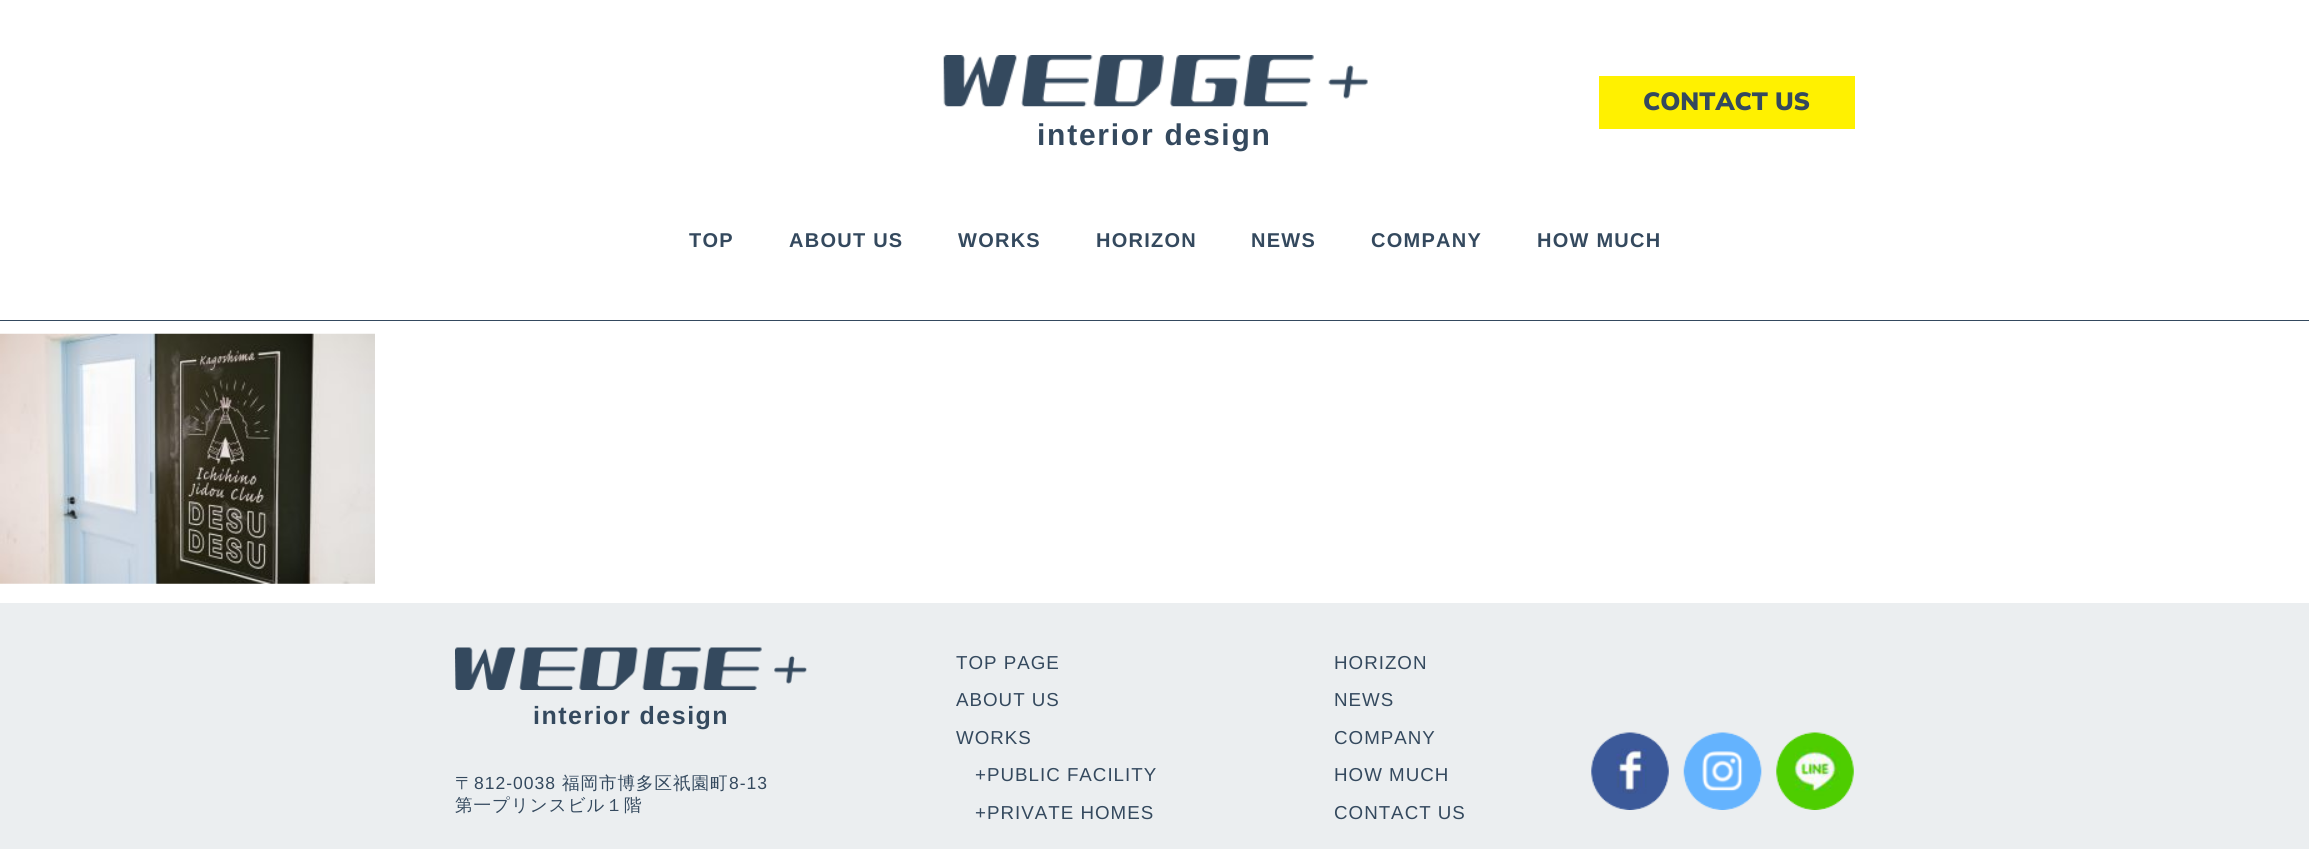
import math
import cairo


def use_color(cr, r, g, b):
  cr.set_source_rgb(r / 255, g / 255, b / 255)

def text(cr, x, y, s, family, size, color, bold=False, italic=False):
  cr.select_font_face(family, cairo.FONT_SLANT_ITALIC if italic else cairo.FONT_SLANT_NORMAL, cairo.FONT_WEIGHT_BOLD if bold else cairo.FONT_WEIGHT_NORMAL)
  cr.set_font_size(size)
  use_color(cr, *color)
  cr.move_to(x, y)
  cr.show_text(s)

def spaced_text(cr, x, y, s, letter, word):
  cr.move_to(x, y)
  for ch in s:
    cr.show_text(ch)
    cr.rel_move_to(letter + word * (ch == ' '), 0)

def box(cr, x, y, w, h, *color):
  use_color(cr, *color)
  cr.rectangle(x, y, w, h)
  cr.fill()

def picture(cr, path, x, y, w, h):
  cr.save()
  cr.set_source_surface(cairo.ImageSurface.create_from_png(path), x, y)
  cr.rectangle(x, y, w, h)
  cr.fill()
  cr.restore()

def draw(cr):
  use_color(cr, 255, 255, 255)
  cr.paint()
  box(cr, 0, 320, 2309, 1, 52, 73, 94)
  box(cr, 1599, 76, 256, 53, 255, 241, 0)
  picture(cr, "img_01.png", 943, 55, 425, 52)
  picture(cr, "img_02.png", 0, 333, 375, 251)
  box(cr, 0, 603, 2309, 246, 235, 238, 240)
  picture(cr, "img_03.png", 455, 647, 352, 43)
  picture(cr, "img_04.png", 1591, 732, 78, 78)
  picture(cr, "img_05.png", 1683, 732, 79, 78)
  picture(cr, "img_06.png", 1776, 732, 78, 78)
  text(cr, 1643, 110, "CONTACT US", "Nunito Sans Black", 25, (52, 73, 94))
  cr.select_font_face("Liberation Sans", cairo.FONT_SLANT_NORMAL, cairo.FONT_WEIGHT_BOLD)
  cr.set_font_size(30)
  spaced_text(cr, 1037, 145, "interior design", 1.75, 0)
  cr.set_font_size(20)
  spaced_text(cr, 689, 247, "TOP", 1.25, 0)
  spaced_text(cr, 789, 247, "ABOUT US", 1.25, 0)
  spaced_text(cr, 958, 247, "WORKS", 1.25, 0)
  spaced_text(cr, 1096, 247, "HORIZON", 1.25, 0)
  spaced_text(cr, 1251, 247, "NEWS", 1.25, 0)
  spaced_text(cr, 1371, 247, "COMPANY", 1.25, 0)
  spaced_text(cr, 1537, 247, "HOW MUCH", 1.25, 0)
  cr.set_font_size(25)
  spaced_text(cr, 533, 724, "interior design", 1.5, 0)
  cr.select_font_face("WenQuanYi Zen Hei Medium")
  cr.set_font_size(17.5)
  spaced_text(cr, 455, 789, "〒", 1, 0)
  cr.select_font_face("Liberation Sans")
  spaced_text(cr, 474, 789, "812-0038", 1, 0)
  cr.select_font_face("WenQuanYi Zen Hei Medium")
  spaced_text(cr, 562, 789, "福岡市博多区祇園町", 1, 0)
  cr.select_font_face("Liberation Sans")
  spaced_text(cr, 729, 789, "8-13", 1, 0)
  cr.select_font_face("WenQuanYi Zen Hei Medium")
  spaced_text(cr, 455, 811, "第一プリンスビル１階", 1, 0)
  cr.select_font_face("Liberation Sans")
  cr.set_font_size(18.75)
  spaced_text(cr, 956, 669, "TOP PAGE", 1, 0)
  spaced_text(cr, 956, 706, "ABOUT US", 1, 0)
  spaced_text(cr, 956, 744, "WORKS", 1, 0)
  spaced_text(cr, 975, 781, "+PUBLIC FACILITY", 1, 0)
  spaced_text(cr, 975, 819, "+PRIVATE HOMES", 1, 0)
  spaced_text(cr, 1334, 669, "HORIZON", 1, 0)
  spaced_text(cr, 1334, 706, "NEWS", 1, 0)
  spaced_text(cr, 1334, 744, "COMPANY", 1, 0)
  spaced_text(cr, 1334, 781, "HOW MUCH", 1, 0)
  spaced_text(cr, 1334, 819, "CONTACT US", 1, 0)


surface = cairo.ImageSurface(cairo.FORMAT_RGB24, 2309, 849)
cr = cairo.Context(surface)
options = cairo.FontOptions()
options.set_hint_metrics(cairo.HINT_METRICS_OFF)
options.set_hint_style(cairo.HINT_STYLE_NONE)
cr.set_font_options(options)
cr.set_miter_limit(4)
draw(cr)
surface.write_to_png("out.png")
